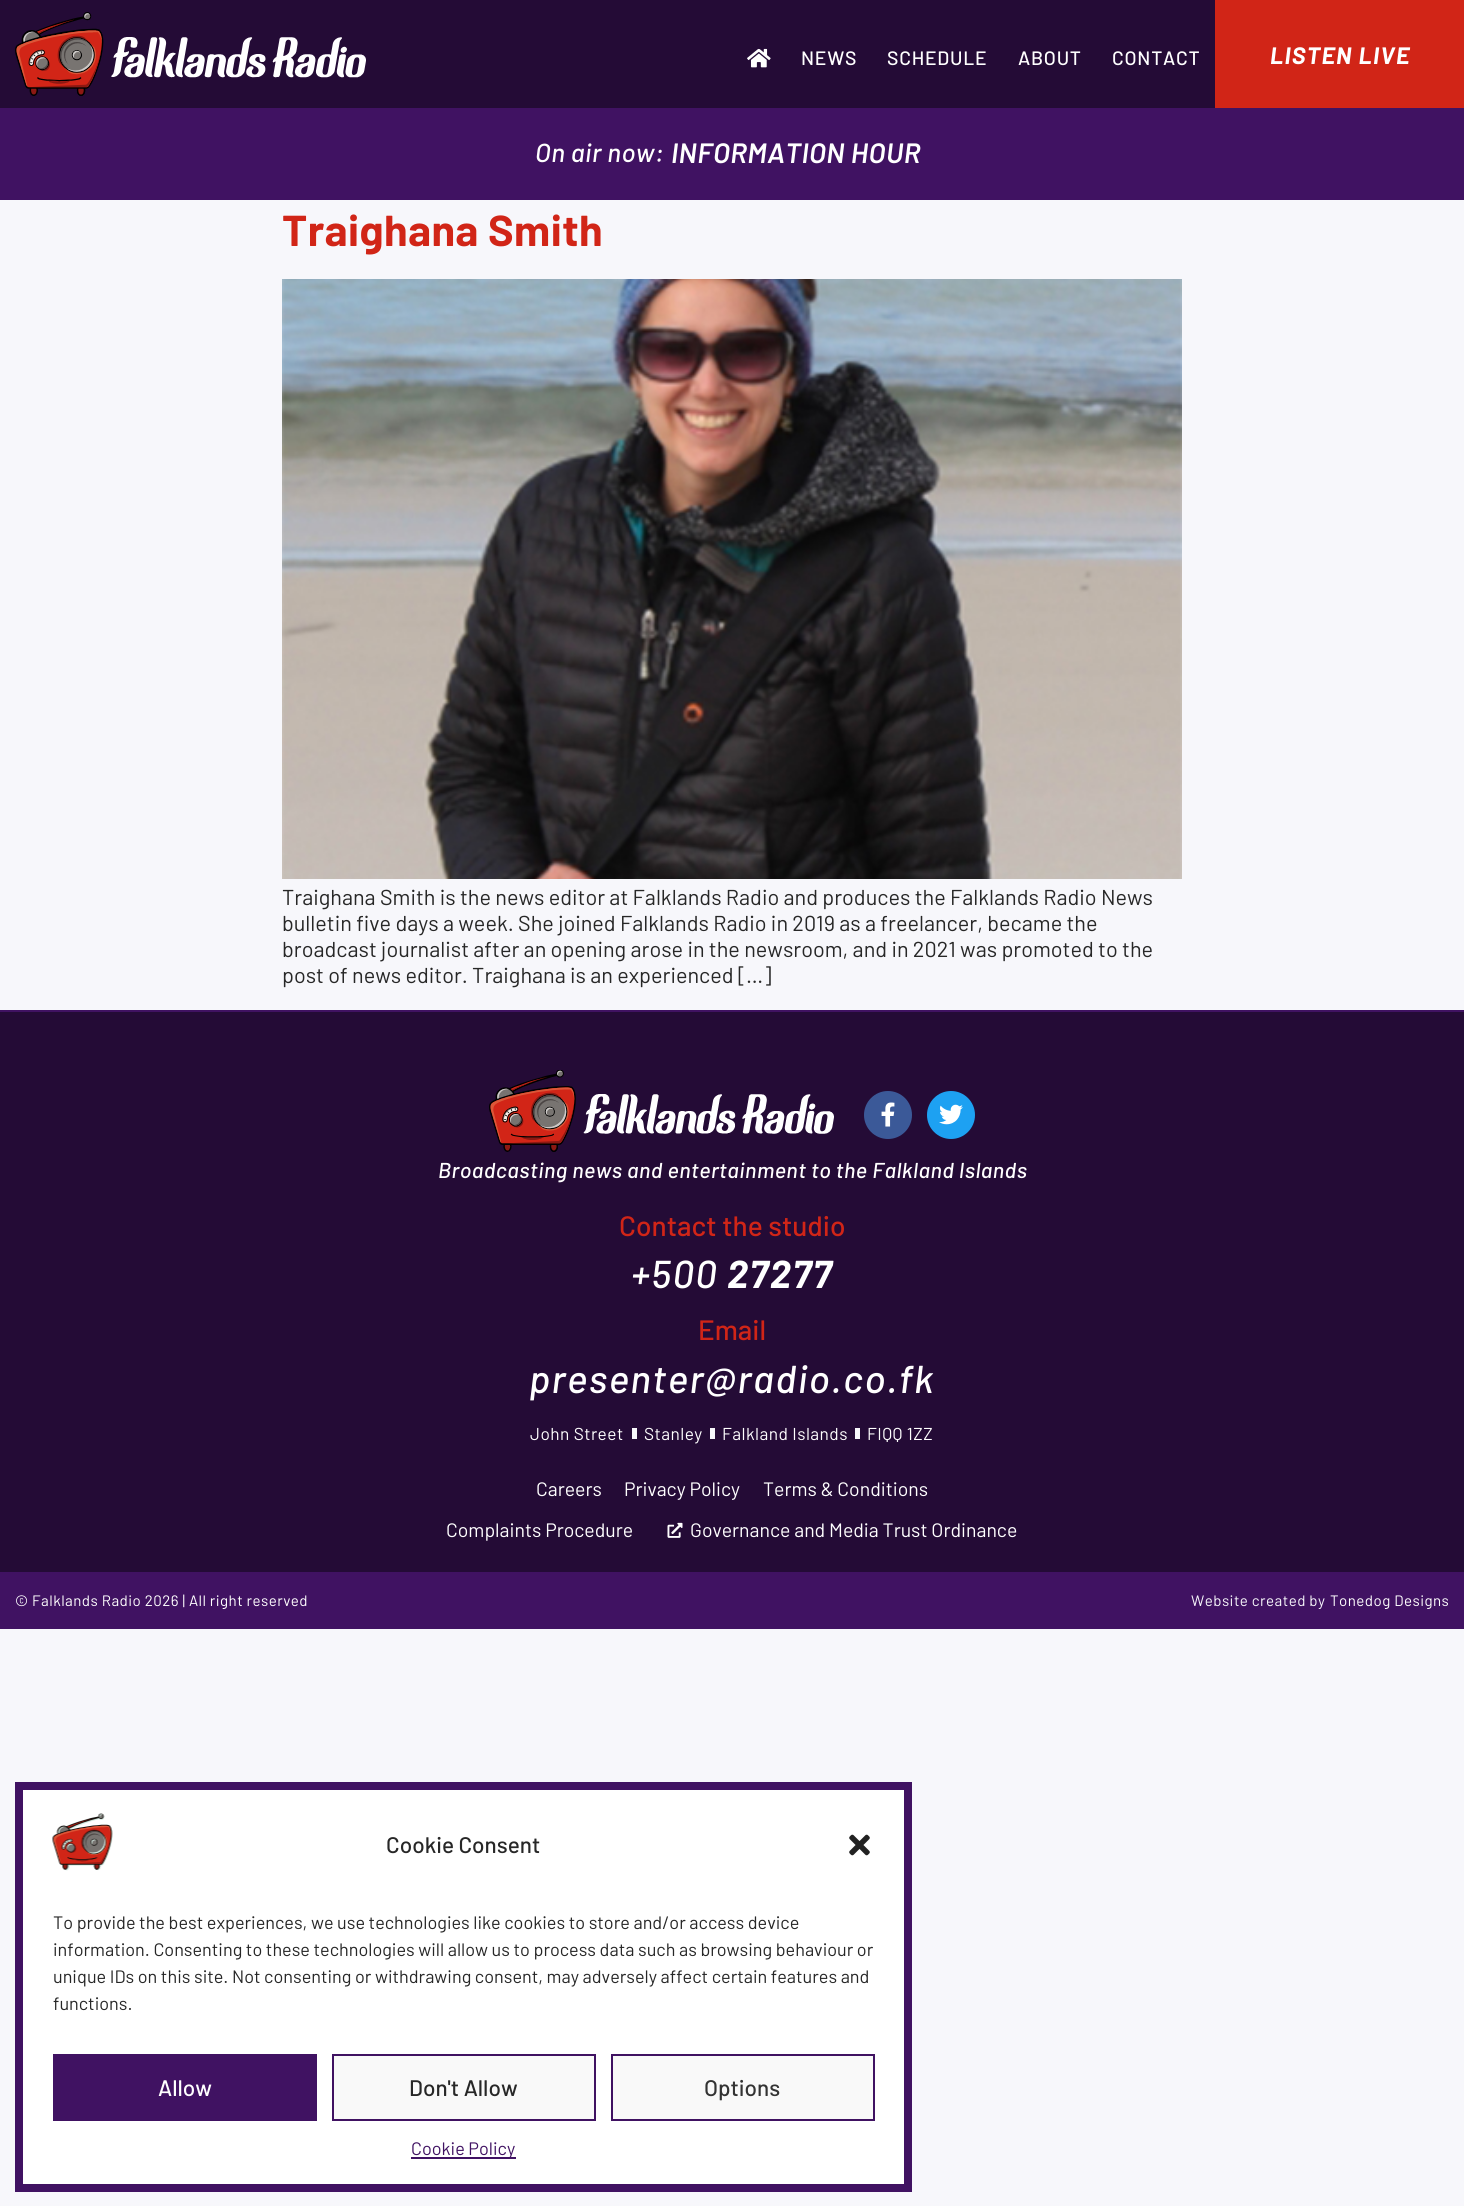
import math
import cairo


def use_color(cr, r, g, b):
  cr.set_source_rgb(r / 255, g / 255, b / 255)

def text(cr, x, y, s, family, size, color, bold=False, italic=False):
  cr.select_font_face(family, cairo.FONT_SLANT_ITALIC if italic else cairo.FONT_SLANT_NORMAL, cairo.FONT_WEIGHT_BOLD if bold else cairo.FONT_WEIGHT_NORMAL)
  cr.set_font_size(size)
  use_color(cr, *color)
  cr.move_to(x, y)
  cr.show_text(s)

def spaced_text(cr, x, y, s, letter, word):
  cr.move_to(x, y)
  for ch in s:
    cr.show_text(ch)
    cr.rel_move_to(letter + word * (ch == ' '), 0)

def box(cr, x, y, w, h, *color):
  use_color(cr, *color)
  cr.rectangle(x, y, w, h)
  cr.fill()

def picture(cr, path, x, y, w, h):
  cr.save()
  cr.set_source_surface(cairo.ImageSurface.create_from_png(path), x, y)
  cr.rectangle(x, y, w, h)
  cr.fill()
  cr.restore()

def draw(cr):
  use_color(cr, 247, 247, 251)
  cr.paint()
  box(cr, 0, 0, 1215, 108, 36, 11, 54)
  picture(cr, "img_01.png", 15, 12, 351, 84)
  picture(cr, "img_02.png", 747, 48, 24, 20)
  box(cr, 1215, 0, 249, 108, 209, 37, 23)
  box(cr, 0, 108, 1464, 92, 64, 18, 98)
  picture(cr, "img_03.png", 282, 279, 900, 600)
  box(cr, 0, 1010, 1464, 2, 64, 18, 98)
  box(cr, 0, 1012, 1464, 560, 36, 11, 54)
  picture(cr, "img_04.png", 489, 1070, 345, 82)
  use_color(cr, 59, 89, 152)
  cr.arc(888, 1115, 24, 0, 2 * math.pi)
  cr.fill()
  picture(cr, "img_05.png", 881, 1102, 14, 25)
  use_color(cr, 29, 161, 242)
  cr.arc(951, 1115, 24, 0, 2 * math.pi)
  cr.fill()
  picture(cr, "img_06.png", 939, 1104, 24, 21)
  box(cr, 632, 1428, 5, 11, 247, 247, 251)
  box(cr, 710, 1428, 5, 11, 247, 247, 251)
  box(cr, 855, 1428, 5, 11, 247, 247, 251)
  picture(cr, "img_07.png", 667, 1522, 16, 16)
  box(cr, 0, 1572, 1464, 57, 64, 18, 98)
  use_color(cr, 255, 255, 255)
  cr.rectangle(19, 1786, 889, 402)
  cr.fill_preserve()
  use_color(cr, 64, 18, 98)
  cr.set_line_width(8)
  cr.stroke()
  picture(cr, "img_08.png", 52, 1813, 61, 58)
  picture(cr, "img_09.png", 849, 1834, 21, 22)
  box(cr, 53, 2054, 264, 67, 64, 18, 98)
  use_color(cr, 249, 249, 249)
  cr.rectangle(333, 2055, 262, 65)
  cr.fill_preserve()
  use_color(cr, 64, 18, 98)
  cr.set_line_width(2)
  cr.stroke()
  use_color(cr, 249, 249, 249)
  cr.rectangle(612, 2055, 262, 65)
  cr.fill_preserve()
  use_color(cr, 64, 18, 98)
  cr.stroke()
  box(cr, 411, 2157, 105, 2, 64, 18, 98)
  cr.select_font_face("Barlow Medium")
  cr.set_font_size(19.4)
  use_color(cr, 255, 255, 255)
  spaced_text(cr, 801, 65, "NEWS", 0.75, 0)
  spaced_text(cr, 887, 65, "SCHEDULE", 0.75, 0)
  spaced_text(cr, 1018, 65, "ABOUT", 0.75, 0)
  spaced_text(cr, 1112, 65, "CONTACT", 0.75, 0)
  cr.select_font_face("Barlow", cairo.FONT_SLANT_ITALIC, cairo.FONT_WEIGHT_BOLD)
  cr.set_font_size(23.75)
  spaced_text(cr, 1270, 64, "LISTEN LIVE", 1.25, 0)
  cr.select_font_face("Barlow Medium", cairo.FONT_SLANT_ITALIC)
  cr.set_font_size(26)
  spaced_text(cr, 535, 162, "On air now:", 0.45, 0)
  cr.select_font_face("Barlow SemiBold", cairo.FONT_SLANT_ITALIC)
  cr.set_font_size(28)
  spaced_text(cr, 671, 163, "INFORMATION HOUR", 0.45, 0)
  cr.select_font_face("Barlow", cairo.FONT_SLANT_NORMAL, cairo.FONT_WEIGHT_BOLD)
  cr.set_font_size(43.25)
  use_color(cr, 209, 37, 23)
  spaced_text(cr, 282, 246, "Traighana Smith", 0.45, 0)
  text(cr, 282, 905, "Traighana Smith is the news editor at Falklands Radio and produces the Falklands Radio News", "Barlow", 21.6, (39, 39, 39))
  text(cr, 282, 931, "bulletin five days a week. She joined Falklands Radio in 2019 as a freelancer, became the", "Barlow", 21.6, (39, 39, 39))
  text(cr, 282, 957, "broadcast journalist after an opening arose in the newsroom, and in 2021 was promoted to the", "Barlow", 21.6, (39, 39, 39))
  text(cr, 282, 983, "post of news editor. Traighana is an experienced […]", "Barlow", 21.6, (39, 39, 39))
  cr.select_font_face("Barlow Medium", cairo.FONT_SLANT_ITALIC)
  use_color(cr, 255, 255, 255)
  spaced_text(cr, 438, 1178, "Broadcasting news and entertainment to the Falkland Islands", 0.45, 0)
  text(cr, 619, 1236, "Contact the studio", "Barlow Medium", 28, (209, 37, 23))
  cr.select_font_face("Barlow Medium", cairo.FONT_SLANT_ITALIC)
  cr.set_font_size(38.9)
  use_color(cr, 255, 255, 255)
  spaced_text(cr, 631, 1288, "+500", 1.5, 0)
  cr.select_font_face("Barlow", cairo.FONT_SLANT_ITALIC, cairo.FONT_WEIGHT_BOLD)
  spaced_text(cr, 727, 1288, "27277", 1.5, 0)
  text(cr, 698, 1340, "Email", "Barlow Medium", 28, (209, 37, 23))
  cr.select_font_face("Barlow Medium", cairo.FONT_SLANT_ITALIC)
  cr.set_font_size(38.9)
  use_color(cr, 255, 255, 255)
  spaced_text(cr, 529, 1393, "presenter@radio.co.fk", 1.5, 0)
  cr.select_font_face("Barlow")
  cr.set_font_size(17.25)
  spaced_text(cr, 530, 1440, "John Street", 0.45, 0)
  spaced_text(cr, 644, 1440, "Stanley", 0.45, 0)
  spaced_text(cr, 722, 1440, "Falkland Islands", 0.45, 0)
  spaced_text(cr, 867, 1440, "FIQQ 1ZZ", 0.45, 0)
  text(cr, 536, 1496, "Careers", "Barlow", 19.4, (255, 255, 255))
  text(cr, 624, 1496, "Privacy Policy", "Barlow", 19.4, (255, 255, 255))
  text(cr, 763, 1496, "Terms & Conditions", "Barlow", 19.4, (255, 255, 255))
  text(cr, 446, 1537, "Complaints Procedure", "Barlow", 19.4, (255, 255, 255))
  text(cr, 690, 1537, "Governance and Media Trust Ordinance", "Barlow", 19.4, (255, 255, 255))
  cr.set_font_size(15.1)
  spaced_text(cr, 15, 1606, "© Falklands Radio 2026 | All right reserved", 0.45, 0)
  use_color(cr, 247, 247, 251)
  spaced_text(cr, 1191, 1606, "Website created by", 0.45, 0)
  use_color(cr, 255, 255, 255)
  spaced_text(cr, 1330, 1606, "Tonedog Designs", 0.45, 0)
  text(cr, 386, 1853, "Cookie Consent", "Barlow Medium", 22.5, (39, 39, 39))
  text(cr, 53, 1929, "To provide the best experiences, we use technologies like cookies to store and/or access device", "Barlow", 18, (39, 39, 39))
  text(cr, 53, 1956, "information. Consenting to these technologies will allow us to process data such as browsing behaviour or", "Barlow", 18, (39, 39, 39))
  text(cr, 53, 1983, "unique IDs on this site. Not consenting or withdrawing consent, may adversely affect certain features and", "Barlow", 18, (39, 39, 39))
  text(cr, 53, 2010, "functions.", "Barlow", 18, (39, 39, 39))
  text(cr, 158, 2096, "Allow", "Barlow Medium", 22.5, (255, 255, 255))
  text(cr, 409, 2096, "Don't Allow", "Barlow Medium", 22.5, (39, 39, 39))
  text(cr, 704, 2096, "Options", "Barlow Medium", 22.5, (51, 51, 51))
  text(cr, 411, 2155, "Cookie Policy", "Barlow", 18, (64, 18, 98))


surface = cairo.ImageSurface(cairo.FORMAT_RGB24, 1464, 2206)
cr = cairo.Context(surface)
options = cairo.FontOptions()
options.set_hint_metrics(cairo.HINT_METRICS_OFF)
options.set_hint_style(cairo.HINT_STYLE_NONE)
cr.set_font_options(options)
cr.set_miter_limit(4)
draw(cr)
surface.write_to_png("out.png")
